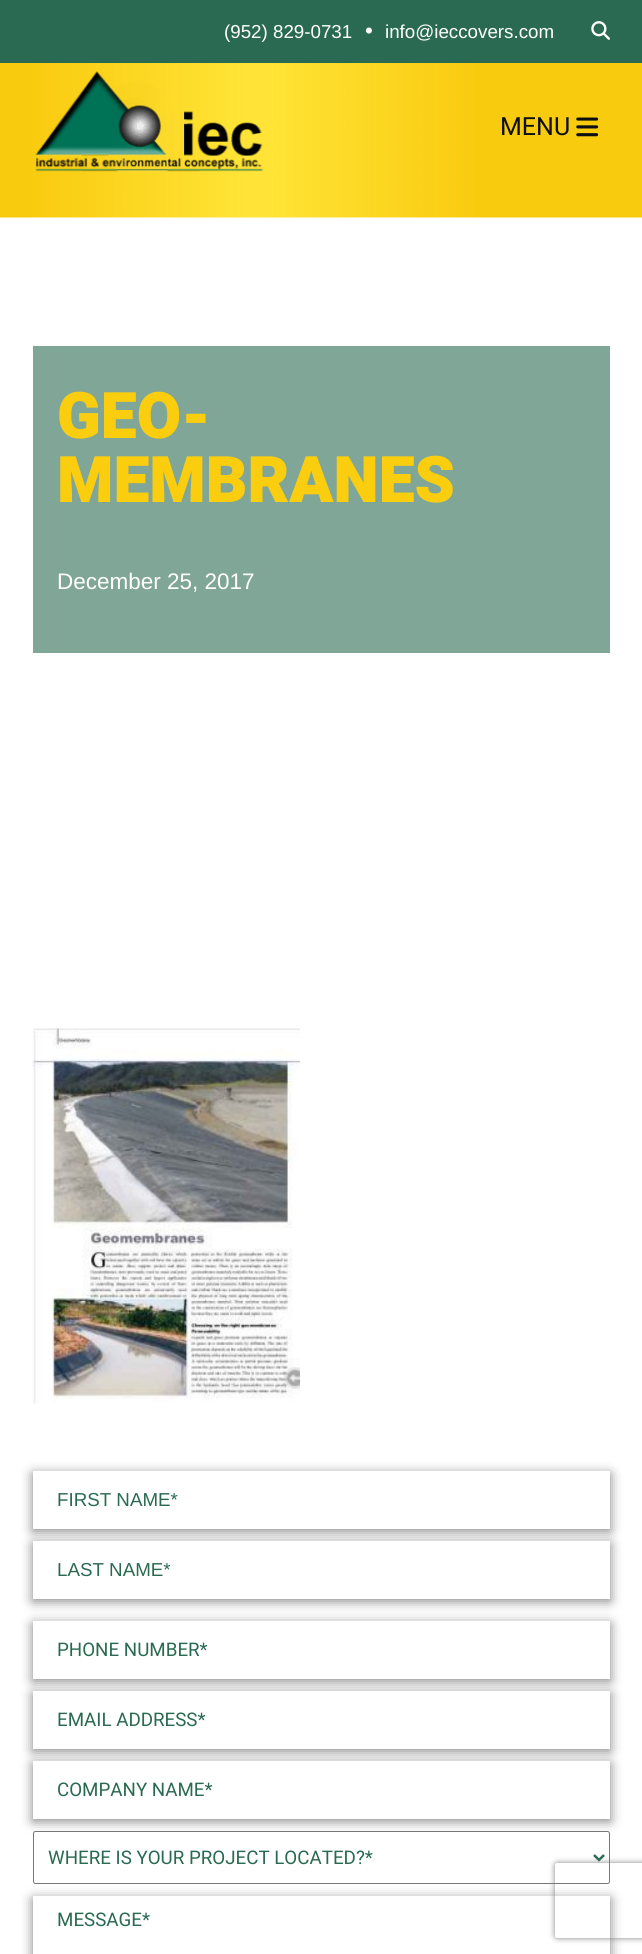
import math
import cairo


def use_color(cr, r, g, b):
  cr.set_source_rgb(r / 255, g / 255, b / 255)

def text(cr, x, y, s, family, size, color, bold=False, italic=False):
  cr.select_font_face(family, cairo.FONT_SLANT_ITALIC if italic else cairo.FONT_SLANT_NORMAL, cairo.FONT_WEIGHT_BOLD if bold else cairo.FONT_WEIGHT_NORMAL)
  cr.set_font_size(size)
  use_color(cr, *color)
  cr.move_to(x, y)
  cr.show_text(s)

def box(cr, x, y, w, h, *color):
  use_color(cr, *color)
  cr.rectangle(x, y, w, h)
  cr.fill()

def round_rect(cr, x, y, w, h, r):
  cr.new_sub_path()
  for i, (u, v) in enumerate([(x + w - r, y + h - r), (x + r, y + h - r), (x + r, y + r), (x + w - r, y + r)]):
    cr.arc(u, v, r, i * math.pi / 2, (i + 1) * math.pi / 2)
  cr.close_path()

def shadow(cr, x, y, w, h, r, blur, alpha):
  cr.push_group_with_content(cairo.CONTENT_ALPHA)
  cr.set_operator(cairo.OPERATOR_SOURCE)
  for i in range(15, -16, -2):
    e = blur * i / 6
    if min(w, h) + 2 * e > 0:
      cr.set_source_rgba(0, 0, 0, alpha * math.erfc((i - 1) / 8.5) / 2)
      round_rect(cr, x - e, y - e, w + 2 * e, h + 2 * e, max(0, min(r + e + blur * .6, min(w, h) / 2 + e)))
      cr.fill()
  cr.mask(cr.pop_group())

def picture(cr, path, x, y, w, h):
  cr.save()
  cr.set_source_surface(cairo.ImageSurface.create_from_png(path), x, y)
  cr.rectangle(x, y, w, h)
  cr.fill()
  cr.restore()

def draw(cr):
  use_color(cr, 255, 255, 255)
  cr.paint()
  box(cr, 0, 0, 642, 63, 42, 106, 82)
  picture(cr, "img_01.png", 591, 21, 19, 19)
  picture(cr, "img_02.png", 0, 63, 642, 155)
  picture(cr, "img_03.png", 35, 71, 229, 101)
  picture(cr, "img_04.png", 576, 117, 23, 20)
  box(cr, 33, 346, 577, 307, 127, 166, 151)
  picture(cr, "img_05.png", 32, 1028, 268, 376)
  use_color(cr, 128, 128, 128)
  shadow(cr, 33, 1474, 577, 57, 0, 6, 1)
  box(cr, 33, 1471, 577, 58, 255, 255, 255)
  use_color(cr, 128, 128, 128)
  shadow(cr, 33, 1544, 577, 57, 0, 6, 1)
  box(cr, 33, 1541, 577, 58, 255, 255, 255)
  use_color(cr, 128, 128, 128)
  shadow(cr, 33, 1624, 577, 57, 0, 6, 1)
  box(cr, 33, 1621, 577, 58, 255, 255, 255)
  use_color(cr, 128, 128, 128)
  shadow(cr, 33, 1694, 577, 57, 0, 6, 1)
  box(cr, 33, 1691, 577, 58, 255, 255, 255)
  use_color(cr, 128, 128, 128)
  shadow(cr, 33, 1764, 577, 57, 0, 6, 1)
  box(cr, 33, 1761, 577, 58, 255, 255, 255)
  round_rect(cr, 33.5, 1831.5, 576, 52, 2)
  cr.fill_preserve()
  use_color(cr, 118, 118, 118)
  cr.set_line_width(1)
  cr.stroke()
  cr.new_path()
  cr.move_to(594, 1855)
  cr.line_to(599, 1860)
  cr.line_to(604, 1855)
  use_color(cr, 42, 106, 82)
  cr.set_line_width(2.5)
  cr.stroke()
  use_color(cr, 128, 128, 128)
  shadow(cr, 33, 1899, 577, 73, 0, 6, 1)
  box(cr, 33, 1896, 577, 58, 255, 255, 255)
  cr.save()
  cr.set_fill_rule(cairo.FILL_RULE_EVEN_ODD)
  cr.new_path()
  cr.move_to(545, 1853)
  cr.line_to(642, 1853)
  cr.line_to(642, 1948)
  cr.line_to(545, 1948)
  cr.close_path()
  cr.move_to(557.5, 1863)
  cr.line_to(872.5, 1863)
  cr.curve_to(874, 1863, 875, 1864, 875, 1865.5)
  cr.line_to(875, 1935.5)
  cr.curve_to(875, 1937, 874, 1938, 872.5, 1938)
  cr.line_to(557.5, 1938)
  cr.curve_to(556, 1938, 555, 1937, 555, 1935.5)
  cr.line_to(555, 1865.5)
  cr.curve_to(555, 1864, 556, 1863, 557.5, 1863)
  cr.close_path()
  cr.clip()
  use_color(cr, 128, 128, 128)
  shadow(cr, 555, 1863, 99, 75, 2.5, 3, 1)
  cr.restore()
  text(cr, 224, 38, "(952) 829-0731", "Liberation Sans", 18.75, (255, 255, 255))
  text(cr, 365, 38, "•", "Liberation Sans", 22.5, (255, 255, 255))
  text(cr, 385, 38, "info@ieccovers.com", "Liberation Sans", 18.75, (255, 255, 255))
  text(cr, 500, 135, "MENU", "Heebo", 25, (13, 16, 18))
  text(cr, 57, 438, "GEO-", "Heebo Black", 64.25, (250, 205, 15))
  text(cr, 57, 502, "MEMBRANES", "Heebo Black", 64.25, (250, 205, 15))
  text(cr, 57, 589, "December 25, 2017", "Liberation Sans", 22.5, (255, 255, 255))
  text(cr, 57, 1506, "FIRST NAME*", "Liberation Sans", 18.75, (42, 106, 82))
  text(cr, 57, 1576, "LAST NAME*", "Liberation Sans", 18.75, (42, 106, 82))
  text(cr, 57, 1656, "PHONE NUMBER*", "Heebo", 18.75, (42, 106, 82))
  text(cr, 57, 1726, "EMAIL ADDRESS*", "Heebo", 18.75, (42, 106, 82))
  text(cr, 57, 1796, "COMPANY NAME*", "Heebo", 18.75, (42, 106, 82))
  text(cr, 48, 1864, "WHERE IS YOUR PROJECT LOCATED?*", "Heebo", 18.75, (42, 106, 82))
  text(cr, 57, 1926, "MESSAGE*", "Heebo", 18.75, (42, 106, 82))


surface = cairo.ImageSurface(cairo.FORMAT_RGB24, 642, 1954)
cr = cairo.Context(surface)
options = cairo.FontOptions()
options.set_hint_metrics(cairo.HINT_METRICS_OFF)
options.set_hint_style(cairo.HINT_STYLE_NONE)
cr.set_font_options(options)
cr.set_miter_limit(4)
draw(cr)
surface.write_to_png("out.png")
